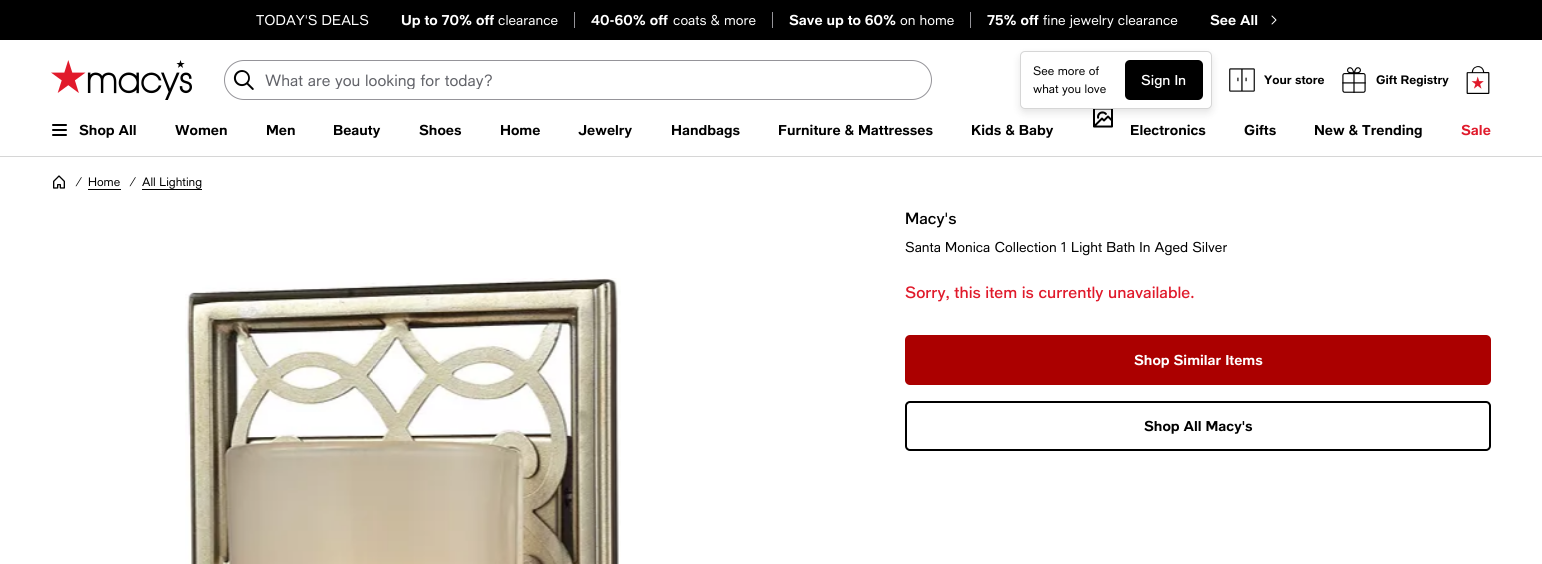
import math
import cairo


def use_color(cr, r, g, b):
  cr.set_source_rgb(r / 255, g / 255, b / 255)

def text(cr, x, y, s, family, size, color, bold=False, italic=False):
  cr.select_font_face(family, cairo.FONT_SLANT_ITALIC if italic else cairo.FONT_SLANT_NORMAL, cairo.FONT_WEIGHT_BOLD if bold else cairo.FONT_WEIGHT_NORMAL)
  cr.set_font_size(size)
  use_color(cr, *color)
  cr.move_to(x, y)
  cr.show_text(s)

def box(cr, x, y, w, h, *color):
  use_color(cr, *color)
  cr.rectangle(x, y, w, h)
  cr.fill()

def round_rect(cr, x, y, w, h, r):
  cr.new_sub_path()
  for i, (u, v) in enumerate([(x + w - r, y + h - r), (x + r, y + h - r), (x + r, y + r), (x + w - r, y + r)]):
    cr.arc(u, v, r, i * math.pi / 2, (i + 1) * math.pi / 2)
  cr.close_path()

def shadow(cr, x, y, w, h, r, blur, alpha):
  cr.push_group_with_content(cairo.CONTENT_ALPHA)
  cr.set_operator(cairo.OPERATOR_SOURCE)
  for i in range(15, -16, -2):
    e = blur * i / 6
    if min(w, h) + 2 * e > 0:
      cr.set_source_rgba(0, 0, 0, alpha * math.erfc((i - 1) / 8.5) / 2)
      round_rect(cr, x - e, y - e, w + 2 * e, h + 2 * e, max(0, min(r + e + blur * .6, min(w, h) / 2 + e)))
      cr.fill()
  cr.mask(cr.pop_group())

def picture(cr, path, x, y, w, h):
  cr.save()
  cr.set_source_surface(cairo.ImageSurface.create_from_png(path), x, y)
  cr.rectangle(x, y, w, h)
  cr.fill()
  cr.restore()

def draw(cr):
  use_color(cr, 255, 255, 255)
  cr.paint()
  box(cr, 0, 0, 1542, 40, 0, 0, 0)
  box(cr, 574, 12, 1, 16, 149, 148, 153)
  box(cr, 772, 12, 1, 16, 149, 148, 153)
  box(cr, 970, 12, 1, 16, 149, 148, 153)
  cr.new_path()
  cr.move_to(1272, 16)
  cr.line_to(1276, 20)
  cr.line_to(1272, 24)
  use_color(cr, 255, 255, 255)
  cr.set_line_width(1)
  cr.set_line_cap(cairo.LINE_CAP_ROUND)
  cr.set_line_join(cairo.LINE_JOIN_ROUND)
  cr.stroke()
  picture(cr, "img_01.png", 51, 60, 141, 40)
  round_rect(cr, 224.5, 60.5, 707, 39, 19.5)
  use_color(cr, 149, 148, 153)
  cr.set_line_cap(cairo.LINE_CAP_BUTT)
  cr.set_line_join(cairo.LINE_JOIN_MITER)
  cr.stroke()
  picture(cr, "img_02.png", 233, 70, 21, 20)
  picture(cr, "img_06.png", 1093, 109, 20, 19)
  use_color(cr, 0, 0, 0)
  shadow(cr, 1020, 55, 192, 58, 5, 4, 0.1)
  use_color(cr, 255, 255, 255)
  round_rect(cr, 1020.5, 51.5, 191, 57, 4.5)
  cr.fill_preserve()
  use_color(cr, 214, 214, 214)
  cr.stroke()
  use_color(cr, 0, 0, 0)
  round_rect(cr, 1125, 60, 78, 40, 5)
  cr.fill()
  picture(cr, "img_03.png", 1229, 68, 26, 24)
  picture(cr, "img_04.png", 1342, 67, 24, 26)
  picture(cr, "img_05.png", 1466, 66, 24, 28)
  box(cr, 0, 156, 1542, 1, 214, 214, 214)
  use_color(cr, 0, 0, 0)
  round_rect(cr, 52, 124, 15, 2, 1)
  cr.fill()
  round_rect(cr, 52, 129, 15, 2, 1)
  cr.fill()
  round_rect(cr, 52, 134, 15, 2, 1)
  cr.fill()
  picture(cr, "img_07.png", 53, 175, 12, 14)
  box(cr, 88, 189, 33, 1, 0, 0, 0)
  box(cr, 142, 189, 60, 1, 0, 0, 0)
  picture(cr, "img_08.png", 185, 278, 436, 286)
  use_color(cr, 171, 0, 0)
  round_rect(cr, 905, 335, 586, 50, 5)
  cr.fill()
  round_rect(cr, 906, 402, 584, 48, 4)
  use_color(cr, 0, 0, 0)
  cr.set_line_width(2)
  cr.stroke()
  text(cr, 256, 25, "TODAY'S DEALS", "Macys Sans", 14, (255, 255, 255))
  text(cr, 401, 25, "Up to 70% off", "Macys Sans", 14, (255, 255, 255), bold=True)
  text(cr, 498, 25, "clearance", "Macys Sans", 14, (255, 255, 255))
  text(cr, 591, 25, "40-60% off", "Macys Sans", 14, (255, 255, 255), bold=True)
  text(cr, 673, 25, "coats & more", "Macys Sans", 14, (255, 255, 255))
  text(cr, 789, 25, "Save up to 60%", "Macys Sans", 14, (255, 255, 255), bold=True)
  text(cr, 900, 25, "on home", "Macys Sans", 14, (255, 255, 255))
  text(cr, 987, 25, "75% off", "Macys Sans", 14, (255, 255, 255), bold=True)
  text(cr, 1043, 25, "fine jewelry clearance", "Macys Sans", 14, (255, 255, 255))
  text(cr, 1210, 25, "See All", "Macys Sans", 14, (255, 255, 255), bold=True)
  cr.save()
  cr.rectangle(265, 71, 654, 18)
  cr.clip()
  text(cr, 265, 86, "What are you looking for today?", "Macys Sans", 16, (98, 99, 105))
  cr.restore()
  text(cr, 1033, 75, "See more of", "Macys Sans", 12, (0, 0, 0))
  text(cr, 1033, 93, "what you love", "Macys Sans", 12, (0, 0, 0))
  text(cr, 1141, 85, "Sign In", "Macys Sans Medium", 14, (255, 255, 255))
  text(cr, 1264, 84, "Your store", "Macys Sans", 12, (0, 0, 0), bold=True)
  text(cr, 1376, 84, "Gift Registry", "Macys Sans", 12, (0, 0, 0), bold=True)
  text(cr, 79, 135, "Shop All", "Macys Sans", 14, (0, 0, 0), bold=True)
  text(cr, 175, 135, "Women", "Macys Sans", 14, (0, 0, 0), bold=True)
  text(cr, 266, 135, "Men", "Macys Sans", 14, (0, 0, 0), bold=True)
  text(cr, 333, 135, "Beauty", "Macys Sans", 14, (0, 0, 0), bold=True)
  text(cr, 419, 135, "Shoes", "Macys Sans", 14, (0, 0, 0), bold=True)
  text(cr, 500, 135, "Home", "Macys Sans", 14, (0, 0, 0), bold=True)
  text(cr, 578, 135, "Jewelry", "Macys Sans", 14, (0, 0, 0), bold=True)
  text(cr, 671, 135, "Handbags", "Macys Sans", 14, (0, 0, 0), bold=True)
  text(cr, 778, 135, "Furniture & Mattresses", "Macys Sans", 14, (0, 0, 0), bold=True)
  text(cr, 971, 135, "Kids & Baby", "Macys Sans", 14, (0, 0, 0), bold=True)
  text(cr, 1130, 135, "Electronics", "Macys Sans", 14, (0, 0, 0), bold=True)
  text(cr, 1244, 135, "Gifts", "Macys Sans", 14, (0, 0, 0), bold=True)
  text(cr, 1314, 135, "New & Trending", "Macys Sans", 14, (0, 0, 0), bold=True)
  text(cr, 1461, 135, "Sale", "Macys Sans", 14, (224, 26, 43), bold=True)
  text(cr, 75, 186, "/", "Macys Sans", 12, (0, 0, 0), italic=True)
  text(cr, 88, 186, "Home", "Macys Sans", 12, (0, 0, 0))
  text(cr, 129, 186, "/", "Macys Sans", 12, (0, 0, 0), italic=True)
  text(cr, 142, 186, "All Lighting", "Macys Sans", 12, (0, 0, 0))
  text(cr, 905, 224, "Macy's", "Macys Sans Medium", 16, (0, 0, 0))
  text(cr, 905, 252, "Santa Monica Collection 1 Light Bath In Aged Silver", "Macys Sans", 14, (0, 0, 0))
  text(cr, 905, 298, "Sorry, this item is currently unavailable.", "Macys Sans Medium", 16, (224, 26, 43))
  text(cr, 1134, 365, "Shop Similar Items", "Macys Sans", 14, (255, 255, 255), bold=True)
  text(cr, 1144, 431, "Shop All Macy's", "Macys Sans", 14, (0, 0, 0), bold=True)


surface = cairo.ImageSurface(cairo.FORMAT_RGB24, 1542, 564)
cr = cairo.Context(surface)
options = cairo.FontOptions()
options.set_hint_metrics(cairo.HINT_METRICS_OFF)
options.set_hint_style(cairo.HINT_STYLE_NONE)
cr.set_font_options(options)
cr.set_miter_limit(4)
draw(cr)
surface.write_to_png("out.png")
